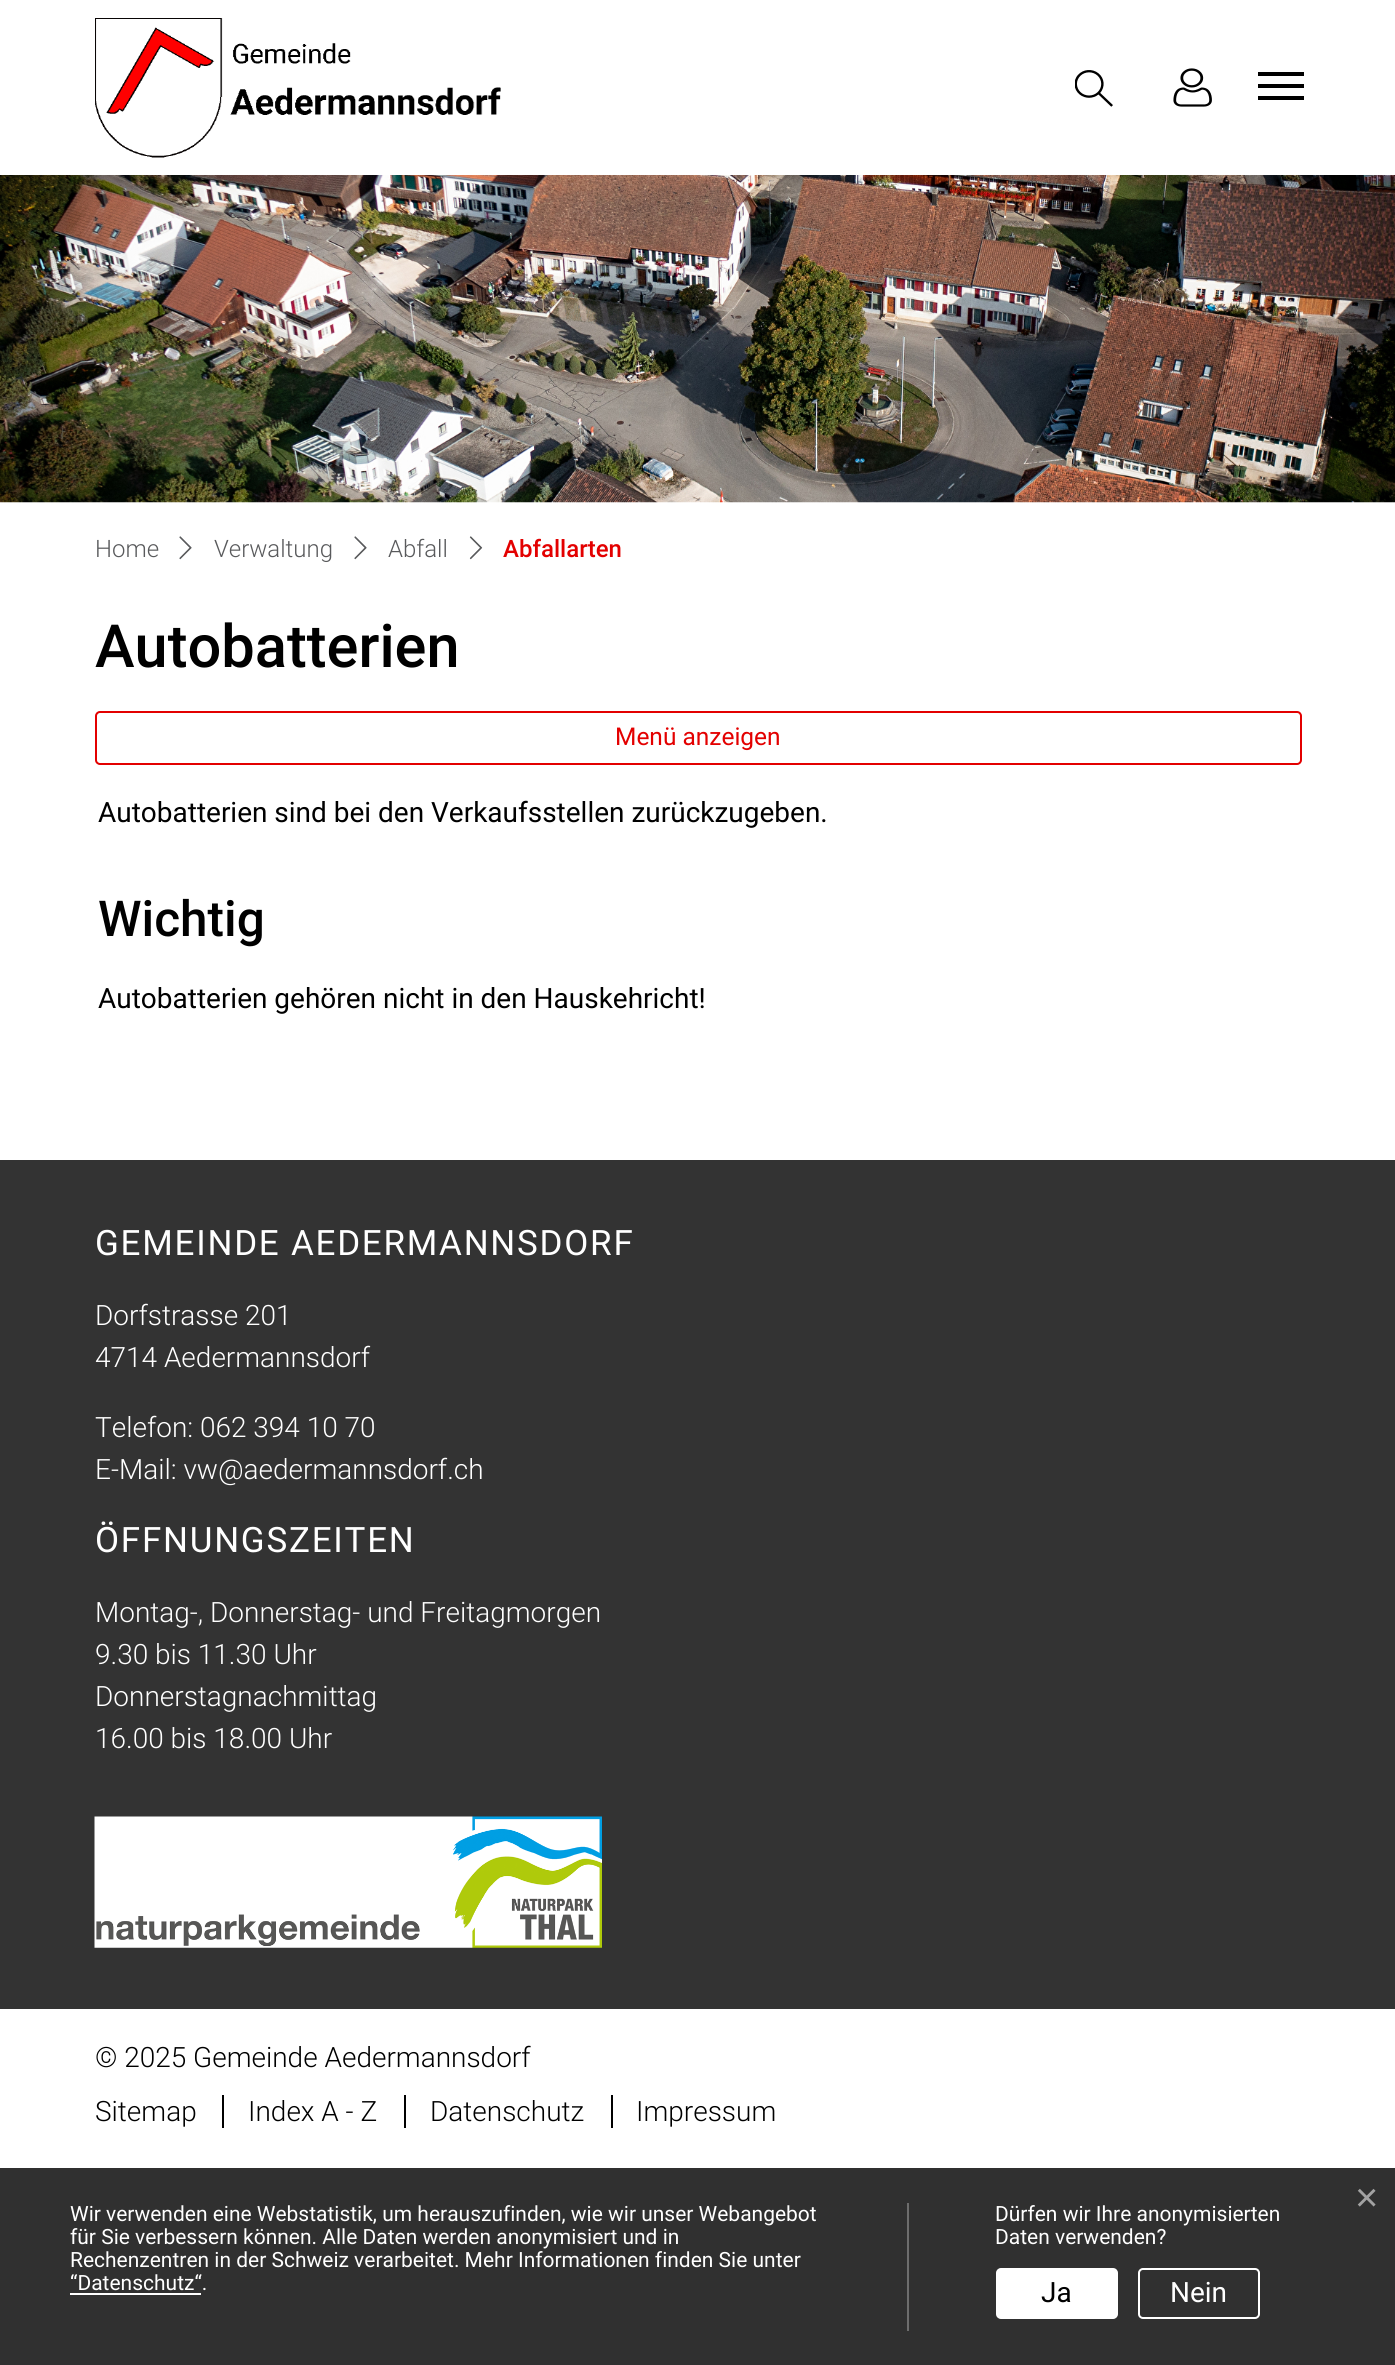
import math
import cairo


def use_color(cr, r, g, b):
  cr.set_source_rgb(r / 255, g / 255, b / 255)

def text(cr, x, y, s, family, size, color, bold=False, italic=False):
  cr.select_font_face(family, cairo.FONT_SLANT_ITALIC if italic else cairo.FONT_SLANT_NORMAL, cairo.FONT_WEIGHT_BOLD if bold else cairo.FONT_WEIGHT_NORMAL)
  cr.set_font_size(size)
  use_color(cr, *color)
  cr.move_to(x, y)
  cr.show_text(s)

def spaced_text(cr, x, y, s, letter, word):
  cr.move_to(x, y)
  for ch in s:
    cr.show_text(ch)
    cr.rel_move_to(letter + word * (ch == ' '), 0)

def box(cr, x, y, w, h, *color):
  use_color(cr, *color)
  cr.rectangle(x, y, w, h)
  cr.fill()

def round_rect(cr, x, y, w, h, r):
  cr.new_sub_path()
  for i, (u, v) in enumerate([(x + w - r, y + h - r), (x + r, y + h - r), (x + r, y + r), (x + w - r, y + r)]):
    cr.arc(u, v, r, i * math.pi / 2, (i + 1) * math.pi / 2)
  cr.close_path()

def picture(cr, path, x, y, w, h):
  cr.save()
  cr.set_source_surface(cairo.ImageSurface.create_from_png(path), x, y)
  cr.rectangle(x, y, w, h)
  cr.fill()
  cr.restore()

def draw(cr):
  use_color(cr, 255, 255, 255)
  cr.paint()
  picture(cr, "img_01.png", 95, 18, 406, 140)
  picture(cr, "img_02.png", 1075, 70, 38, 37)
  picture(cr, "img_03.png", 1173, 68, 39, 39)
  box(cr, 1258, 72, 46, 4, 0, 0, 0)
  box(cr, 1258, 84, 46, 4, 0, 0, 0)
  box(cr, 1258, 96, 46, 4, 0, 0, 0)
  picture(cr, "img_04.png", 0, 175, 1395, 328)
  picture(cr, "img_05.png", 179, 536, 13, 24)
  picture(cr, "img_05.png", 354, 536, 13, 24)
  picture(cr, "img_06.png", 469, 536, 14, 24)
  round_rect(cr, 96, 712, 1205, 52, 4)
  use_color(cr, 227, 0, 0)
  cr.stroke()
  box(cr, 0, 1160, 1395, 849, 51, 51, 51)
  picture(cr, "img_07.png", 94, 1816, 508, 132)
  box(cr, 222, 2095, 2, 33, 0, 0, 0)
  box(cr, 404, 2095, 2, 33, 0, 0, 0)
  box(cr, 611, 2095, 2, 33, 0, 0, 0)
  box(cr, 0, 2168, 1395, 197, 48, 48, 48)
  box(cr, 907, 2203, 2, 128, 109, 109, 109)
  box(cr, 70, 2293, 131, 2, 255, 255, 255)
  round_rect(cr, 997, 2269, 120, 49, 4)
  cr.fill_preserve()
  cr.stroke()
  round_rect(cr, 1139, 2269, 120, 49, 4)
  cr.stroke()
  text(cr, 95, 557, "Home", "Roboto Light", 24, (89, 90, 92))
  text(cr, 214, 557, "Verwaltung", "Roboto Light", 24, (89, 90, 92))
  text(cr, 388, 557, "Abfall", "Roboto Light", 24, (89, 90, 92))
  text(cr, 503, 557, "Abfallarten", "Roboto Medium", 24, (227, 0, 0))
  text(cr, 95, 667, "Autobatterien", "Roboto Medium", 59.5, (0, 0, 0))
  text(cr, 615, 745, "Menü anzeigen", "Roboto", 24.5, (227, 0, 0))
  text(cr, 98, 822, "Autobatterien sind bei den Verkaufsstellen zurückzugeben.", "Roboto", 28, (0, 0, 0))
  text(cr, 98, 936, "Wichtig", "Roboto Medium", 49.5, (0, 0, 0))
  text(cr, 98, 1008, "Autobatterien gehören nicht in den Hauskehricht!", "Roboto", 28, (0, 0, 0))
  cr.set_font_size(35)
  use_color(cr, 255, 255, 255)
  spaced_text(cr, 95, 1255, "GEMEINDE AEDERMANNSDORF", 1.75, 0)
  text(cr, 95, 1325, "Dorfstrasse 201", "Roboto Light", 28, (255, 255, 255))
  text(cr, 95, 1367, "4714 Aedermannsdorf", "Roboto Light", 28, (255, 255, 255))
  text(cr, 95, 1437, "Telefon: 062 394 10 70", "Roboto Light", 28, (255, 255, 255))
  text(cr, 95, 1479, "E-Mail: vw@aedermannsdorf.ch", "Roboto Light", 28, (255, 255, 255))
  cr.select_font_face("Roboto")
  cr.set_font_size(35)
  spaced_text(cr, 95, 1552, "ÖFFNUNGSZEITEN", 1.75, 0)
  text(cr, 95, 1622, "Montag-, Donnerstag- und Freitagmorgen", "Roboto Light", 28, (255, 255, 255))
  text(cr, 95, 1664, "9.30 bis 11.30 Uhr", "Roboto Light", 28, (255, 255, 255))
  text(cr, 95, 1706, "Donnerstagnachmittag", "Roboto Light", 28, (255, 255, 255))
  text(cr, 95, 1748, "16.00 bis 18.00 Uhr", "Roboto Light", 28, (255, 255, 255))
  text(cr, 95, 2067, "© 2025 Gemeinde Aedermannsdorf", "Roboto Light", 28, (0, 0, 0))
  text(cr, 95, 2121, "Sitemap", "Roboto Light", 28, (0, 0, 0))
  text(cr, 248, 2121, "Index A - Z", "Roboto Light", 28, (0, 0, 0))
  text(cr, 430, 2121, "Datenschutz", "Roboto Light", 28, (0, 0, 0))
  text(cr, 636, 2121, "Impressum", "Roboto Light", 28, (0, 0, 0))
  text(cr, 1355, 2211, "×", "Liberation Sans", 40, (162, 162, 162))
  text(cr, 70, 2221, "Wir verwenden eine Webstatistik, um herauszufinden, wie wir unser Webangebot", "Roboto", 21, (255, 255, 255))
  text(cr, 70, 2244, "für Sie verbessern können. Alle Daten werden anonymisiert und in", "Roboto", 21, (255, 255, 255))
  text(cr, 70, 2267, "Rechenzentren in der Schweiz verarbeitet. Mehr Informationen finden Sie unter", "Roboto", 21, (255, 255, 255))
  text(cr, 70, 2290, "“Datenschutz“.", "Roboto", 21, (255, 255, 255))
  text(cr, 995, 2221, "Dürfen wir Ihre anonymisierten", "Roboto", 21, (255, 255, 255))
  text(cr, 995, 2244, "Daten verwenden?", "Roboto", 21, (255, 255, 255))
  text(cr, 1041, 2302, "Ja", "Roboto", 28, (0, 0, 0))
  text(cr, 1170, 2302, "Nein", "Roboto", 28, (255, 255, 255))


surface = cairo.ImageSurface(cairo.FORMAT_RGB24, 1395, 2365)
cr = cairo.Context(surface)
options = cairo.FontOptions()
options.set_hint_metrics(cairo.HINT_METRICS_OFF)
options.set_hint_style(cairo.HINT_STYLE_NONE)
cr.set_font_options(options)
cr.set_miter_limit(4)
draw(cr)
surface.write_to_png("out.png")
